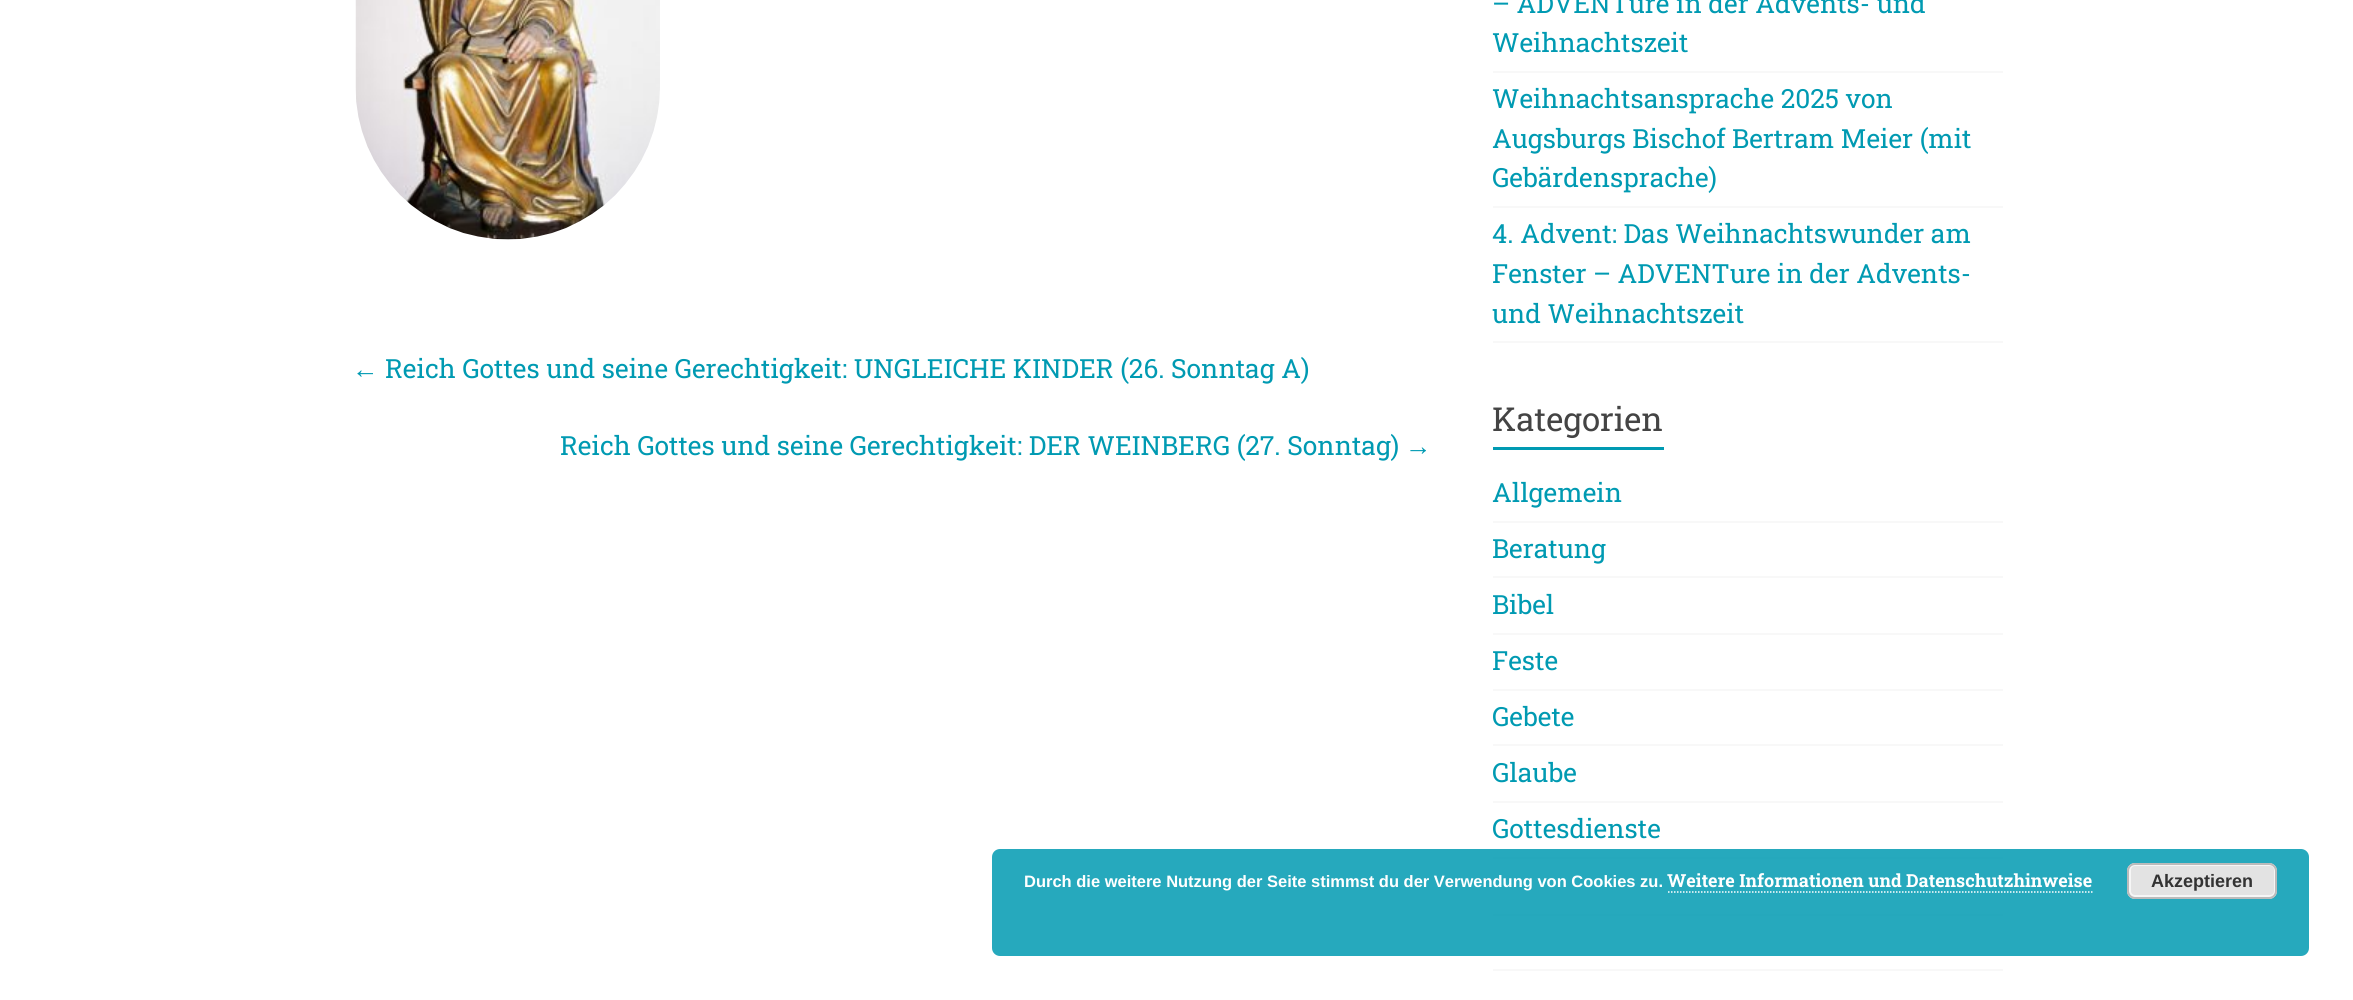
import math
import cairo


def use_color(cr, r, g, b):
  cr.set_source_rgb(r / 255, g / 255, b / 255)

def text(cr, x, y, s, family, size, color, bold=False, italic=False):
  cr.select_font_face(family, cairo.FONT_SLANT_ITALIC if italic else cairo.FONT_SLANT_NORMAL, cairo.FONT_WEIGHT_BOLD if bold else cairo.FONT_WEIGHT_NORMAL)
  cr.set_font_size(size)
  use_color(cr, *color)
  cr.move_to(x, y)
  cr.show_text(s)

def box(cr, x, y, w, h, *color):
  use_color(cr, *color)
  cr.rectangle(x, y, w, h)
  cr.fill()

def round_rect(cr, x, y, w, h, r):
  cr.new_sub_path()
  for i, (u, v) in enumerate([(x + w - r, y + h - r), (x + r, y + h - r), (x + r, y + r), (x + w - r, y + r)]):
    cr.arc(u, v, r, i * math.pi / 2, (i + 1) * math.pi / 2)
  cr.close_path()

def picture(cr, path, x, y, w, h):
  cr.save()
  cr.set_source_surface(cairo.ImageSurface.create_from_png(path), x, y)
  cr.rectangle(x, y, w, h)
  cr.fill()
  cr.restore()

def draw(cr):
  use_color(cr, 255, 255, 255)
  cr.paint()
  picture(cr, "img_01.png", 355, 0, 305, 240)
  box(cr, 1493, 71, 510, 2, 248, 248, 248)
  box(cr, 1493, 206, 510, 2, 248, 248, 248)
  box(cr, 1493, 341, 510, 2, 248, 248, 248)
  box(cr, 1493, 447, 171, 3, 0, 154, 178)
  box(cr, 1493, 521, 510, 2, 248, 248, 248)
  box(cr, 1493, 576, 510, 2, 248, 248, 248)
  box(cr, 1493, 633, 510, 2, 248, 248, 248)
  box(cr, 1493, 689, 510, 2, 248, 248, 248)
  box(cr, 1493, 744, 510, 2, 248, 248, 248)
  box(cr, 1493, 801, 510, 2, 248, 248, 248)
  box(cr, 1493, 857, 510, 2, 248, 248, 248)
  box(cr, 1493, 914, 510, 2, 248, 248, 248)
  box(cr, 1493, 969, 510, 2, 248, 248, 248)
  cr.set_source_rgba(0, 0.604, 0.698, 0.85)
  round_rect(cr, 992, 849, 1317, 107, 8)
  cr.fill()
  cr.new_path()
  cr.move_to(1668, 892)
  cr.line_to(2092.5, 892)
  use_color(cr, 255, 255, 255)
  cr.set_line_width(1.5)
  cr.set_dash([1.5, 1.5])
  cr.stroke()
  use_color(cr, 227, 227, 227)
  round_rect(cr, 2127, 863, 150, 36, 8)
  cr.fill()
  round_rect(cr, 2130, 865, 145, 31, 5)
  use_color(cr, 246, 246, 246)
  cr.set_line_width(2)
  cr.set_dash([])
  cr.stroke()
  round_rect(cr, 2128, 864, 148, 34, 7)
  use_color(cr, 187, 187, 187)
  cr.stroke()
  text(cr, 352, 378, "←", "Liberation Sans", 26.4, (0, 154, 178))
  text(cr, 385, 378, "Reich Gottes und seine Gerechtigkeit: UNGLEICHE KINDER (26. Sonntag A)", "Roboto Slab", 26.4, (0, 154, 178))
  text(cr, 560, 455, "Reich Gottes und seine Gerechtigkeit: DER WEINBERG (27. Sonntag)", "Roboto Slab", 26.4, (0, 154, 178))
  text(cr, 1405, 455, "→", "Liberation Sans", 26.4, (0, 154, 178))
  text(cr, 1492, 13, "– ADVENTure in der Advents- und", "Roboto Slab", 26.4, (0, 154, 178))
  text(cr, 1492, 52, "Weihnachtszeit", "Roboto Slab", 26.4, (0, 154, 178))
  text(cr, 1492, 108, "Weihnachtsansprache 2025 von", "Roboto Slab", 26.4, (0, 154, 178))
  text(cr, 1492, 148, "Augsburgs Bischof Bertram Meier (mit", "Roboto Slab", 26.4, (0, 154, 178))
  text(cr, 1492, 187, "Gebärdensprache)", "Roboto Slab", 26.4, (0, 154, 178))
  text(cr, 1492, 243, "4. Advent: Das Weihnachtswunder am", "Roboto Slab", 26.4, (0, 154, 178))
  text(cr, 1492, 283, "Fenster – ADVENTure in der Advents-", "Roboto Slab", 26.4, (0, 154, 178))
  text(cr, 1492, 323, "und Weihnachtszeit", "Roboto Slab", 26.4, (0, 154, 178))
  text(cr, 1492, 431, "Kategorien", "Roboto Slab", 33, (68, 68, 68))
  text(cr, 1492, 502, "Allgemein", "Roboto Slab", 26.4, (0, 154, 178))
  text(cr, 1492, 558, "Beratung", "Roboto Slab", 26.4, (0, 154, 178))
  text(cr, 1492, 614, "Bibel", "Roboto Slab", 26.4, (0, 154, 178))
  text(cr, 1492, 670, "Feste", "Roboto Slab", 26.4, (0, 154, 178))
  text(cr, 1492, 726, "Gebete", "Roboto Slab", 26.4, (0, 154, 178))
  text(cr, 1492, 782, "Glaube", "Roboto Slab", 26.4, (0, 154, 178))
  text(cr, 1492, 838, "Gottesdienste", "Roboto Slab", 26.4, (0, 154, 178))
  text(cr, 1024, 887, "Durch die weitere Nutzung der Seite stimmst du der Verwendung von Cookies zu.", "Liberation Sans", 16.5, (255, 255, 255), bold=True)
  text(cr, 1667, 887, "Weitere Informationen und Datenschutzhinweise", "Roboto Slab", 18, (255, 255, 255), bold=True)
  text(cr, 2151, 887, "Akzeptieren", "Liberation Sans", 18, (51, 51, 51), bold=True)


surface = cairo.ImageSurface(cairo.FORMAT_RGB24, 2353, 1000)
cr = cairo.Context(surface)
options = cairo.FontOptions()
options.set_hint_metrics(cairo.HINT_METRICS_OFF)
options.set_hint_style(cairo.HINT_STYLE_NONE)
cr.set_font_options(options)
cr.set_miter_limit(4)
draw(cr)
surface.write_to_png("out.png")
